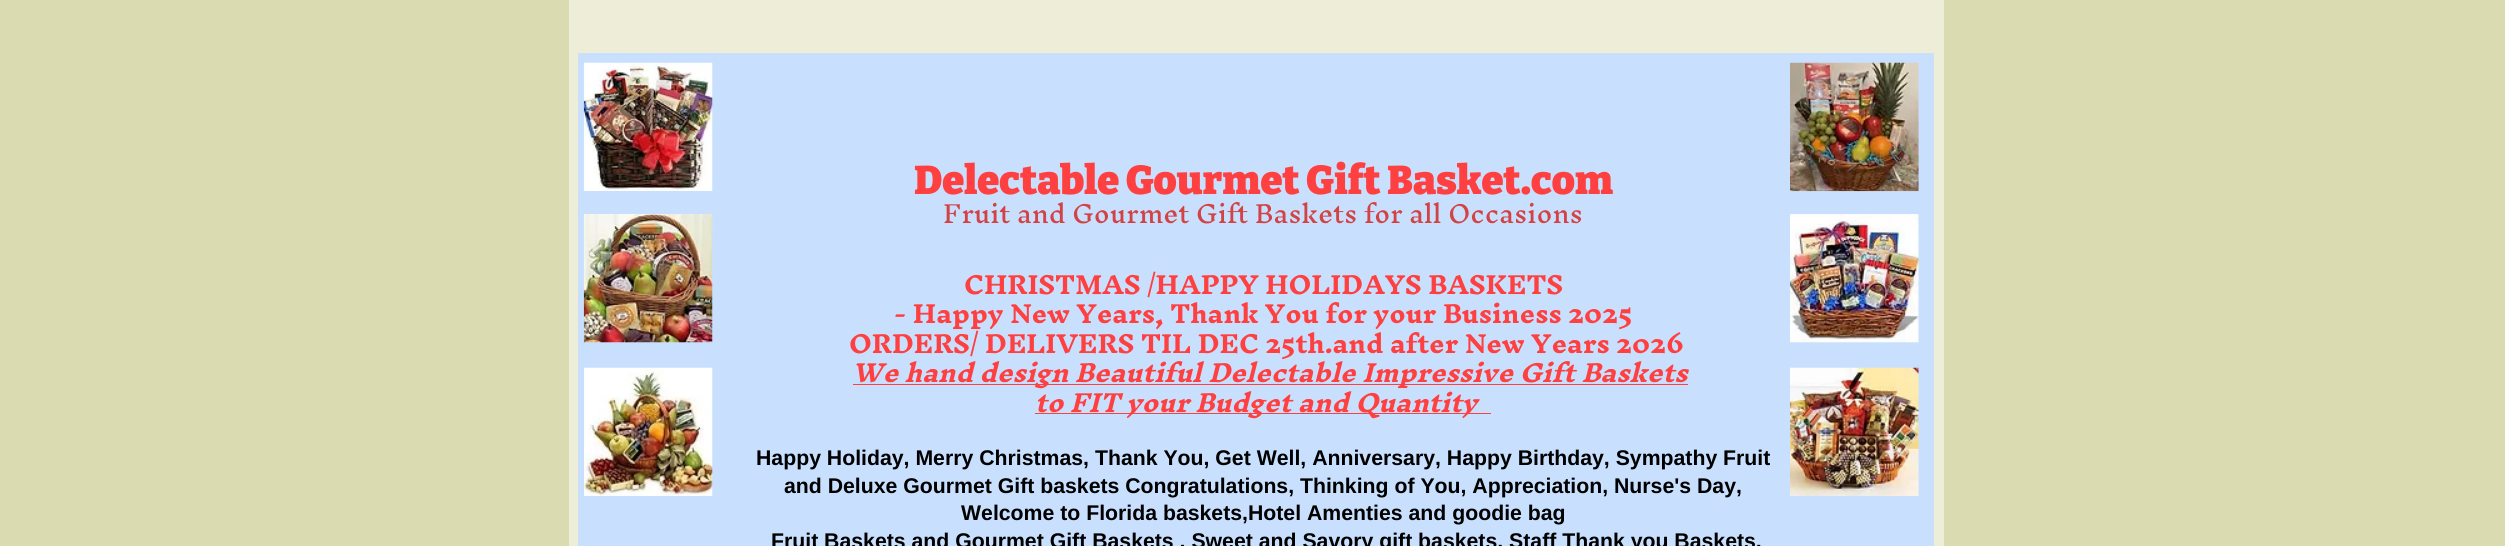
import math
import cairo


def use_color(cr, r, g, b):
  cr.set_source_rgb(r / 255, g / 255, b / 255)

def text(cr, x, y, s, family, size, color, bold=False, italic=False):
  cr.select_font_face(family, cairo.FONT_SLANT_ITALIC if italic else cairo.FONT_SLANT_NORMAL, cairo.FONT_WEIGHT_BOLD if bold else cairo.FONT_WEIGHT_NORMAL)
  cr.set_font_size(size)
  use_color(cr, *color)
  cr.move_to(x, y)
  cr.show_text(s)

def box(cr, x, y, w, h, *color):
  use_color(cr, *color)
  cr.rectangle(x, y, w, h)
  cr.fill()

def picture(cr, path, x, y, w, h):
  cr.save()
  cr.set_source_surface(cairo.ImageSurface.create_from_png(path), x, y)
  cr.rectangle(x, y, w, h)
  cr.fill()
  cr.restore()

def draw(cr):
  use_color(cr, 219, 219, 178)
  cr.paint()
  box(cr, 569, 0, 1375, 546, 237, 237, 216)
  box(cr, 578, 53, 1356, 493, 200, 224, 254)
  picture(cr, "img_01.png", 583, 62, 130, 129)
  picture(cr, "img_02.png", 583, 214, 130, 129)
  picture(cr, "img_03.png", 584, 367, 129, 129)
  box(cr, 853, 384, 835, 1, 255, 64, 64)
  box(cr, 1035, 413, 456, 1, 255, 64, 64)
  picture(cr, "img_04.png", 1790, 62, 129, 130)
  picture(cr, "img_05.png", 1790, 214, 129, 129)
  picture(cr, "img_06.png", 1790, 367, 129, 129)
  text(cr, 914, 194, "Delectable Gourmet Gift Basket.com", "Bitter Black", 40, (255, 64, 64))
  text(cr, 943, 223, "Fruit and Gourmet Gift Baskets for all Occasions", "Inknut Antiqua", 23.75, (210, 67, 69))
  text(cr, 964, 294, "CHRISTMAS /HAPPY HOLIDAYS BASKETS", "Inknut Antiqua", 23.75, (255, 64, 64), bold=True)
  text(cr, 894, 323, "- Happy New Years, Thank You for your Business 2025", "Inknut Antiqua", 23.75, (255, 64, 64), bold=True)
  text(cr, 849, 353, "ORDERS/ DELIVERS TIL DEC 25th.and after New Years 2026", "Inknut Antiqua", 23.75, (255, 64, 64), bold=True)
  text(cr, 852, 382, "We hand design Beautiful Delectable Impressive Gift Baskets", "Inknut Antiqua", 23.75, (255, 64, 64), bold=True, italic=True)
  text(cr, 1035, 412, "to FIT your Budget and Quantity", "Inknut Antiqua", 23.75, (255, 64, 64), bold=True, italic=True)
  text(cr, 756, 465, "Happy Holiday, Merry Christmas, Thank You, Get Well, Anniversary, Happy Birthday, Sympathy Fruit", "Liberation Sans", 21.25, (0, 0, 0), bold=True)
  text(cr, 784, 493, "and Deluxe Gourmet Gift baskets Congratulations, Thinking of You, Appreciation, Nurse's Day,", "Liberation Sans", 21.25, (0, 0, 0), bold=True)
  text(cr, 961, 520, "Welcome to Florida baskets,Hotel Amenties and goodie bag", "Liberation Sans", 21.25, (0, 0, 0), bold=True)
  text(cr, 771, 548, "Fruit Baskets and Gourmet Gift Baskets , Sweet and Savory gift baskets, Staff Thank you Baskets,", "Liberation Sans", 21.25, (0, 0, 0), bold=True)


surface = cairo.ImageSurface(cairo.FORMAT_RGB24, 2505, 546)
cr = cairo.Context(surface)
options = cairo.FontOptions()
options.set_hint_metrics(cairo.HINT_METRICS_OFF)
options.set_hint_style(cairo.HINT_STYLE_NONE)
cr.set_font_options(options)
cr.set_miter_limit(4)
draw(cr)
surface.write_to_png("out.png")
